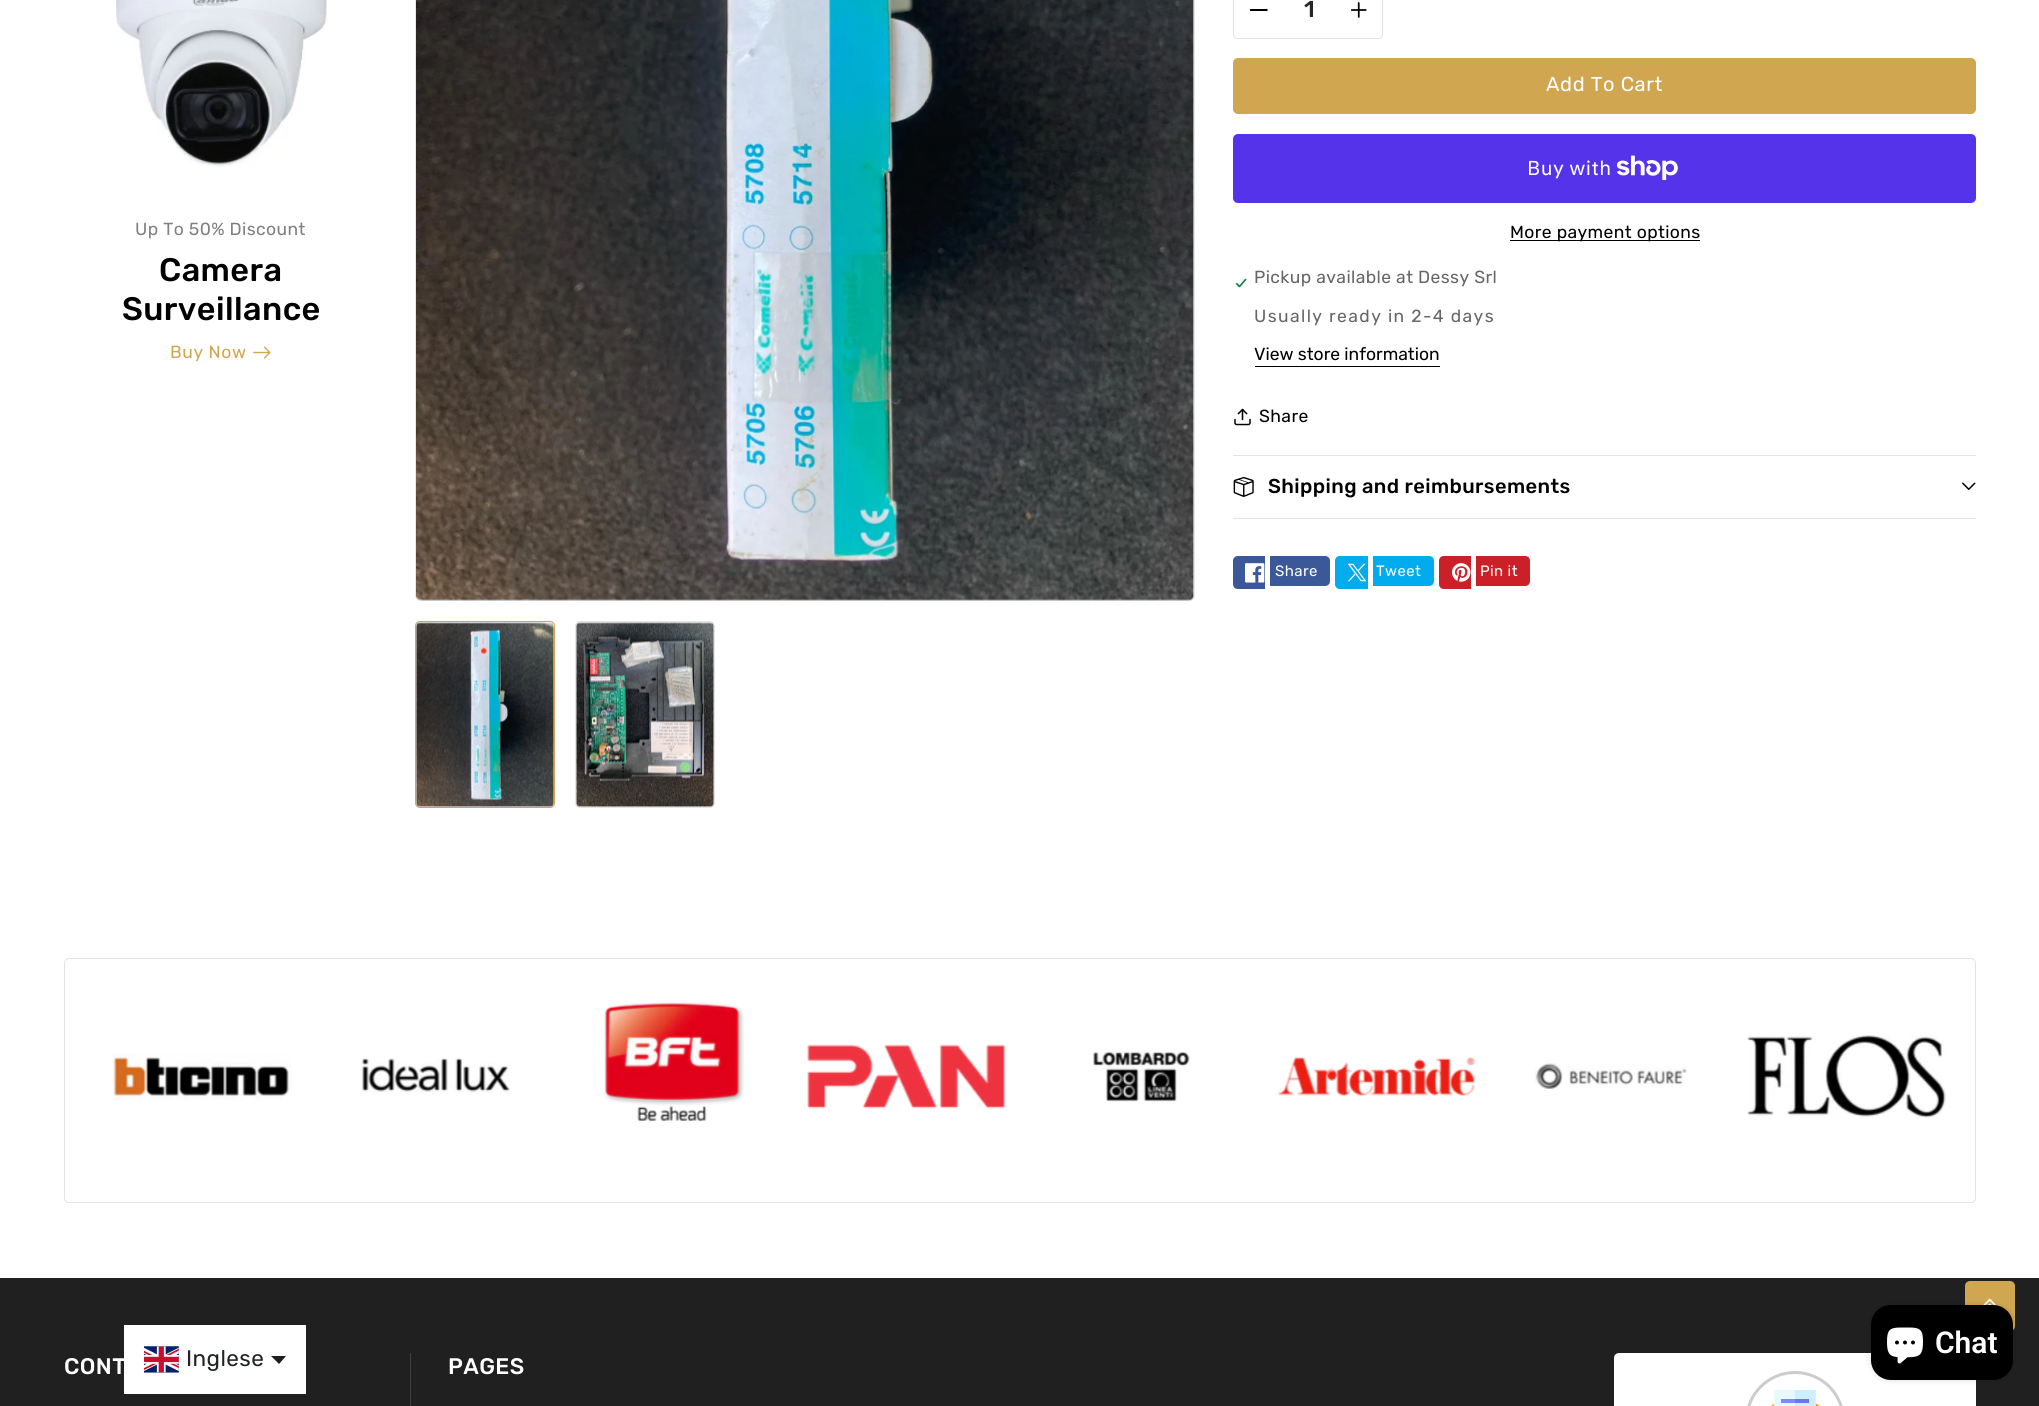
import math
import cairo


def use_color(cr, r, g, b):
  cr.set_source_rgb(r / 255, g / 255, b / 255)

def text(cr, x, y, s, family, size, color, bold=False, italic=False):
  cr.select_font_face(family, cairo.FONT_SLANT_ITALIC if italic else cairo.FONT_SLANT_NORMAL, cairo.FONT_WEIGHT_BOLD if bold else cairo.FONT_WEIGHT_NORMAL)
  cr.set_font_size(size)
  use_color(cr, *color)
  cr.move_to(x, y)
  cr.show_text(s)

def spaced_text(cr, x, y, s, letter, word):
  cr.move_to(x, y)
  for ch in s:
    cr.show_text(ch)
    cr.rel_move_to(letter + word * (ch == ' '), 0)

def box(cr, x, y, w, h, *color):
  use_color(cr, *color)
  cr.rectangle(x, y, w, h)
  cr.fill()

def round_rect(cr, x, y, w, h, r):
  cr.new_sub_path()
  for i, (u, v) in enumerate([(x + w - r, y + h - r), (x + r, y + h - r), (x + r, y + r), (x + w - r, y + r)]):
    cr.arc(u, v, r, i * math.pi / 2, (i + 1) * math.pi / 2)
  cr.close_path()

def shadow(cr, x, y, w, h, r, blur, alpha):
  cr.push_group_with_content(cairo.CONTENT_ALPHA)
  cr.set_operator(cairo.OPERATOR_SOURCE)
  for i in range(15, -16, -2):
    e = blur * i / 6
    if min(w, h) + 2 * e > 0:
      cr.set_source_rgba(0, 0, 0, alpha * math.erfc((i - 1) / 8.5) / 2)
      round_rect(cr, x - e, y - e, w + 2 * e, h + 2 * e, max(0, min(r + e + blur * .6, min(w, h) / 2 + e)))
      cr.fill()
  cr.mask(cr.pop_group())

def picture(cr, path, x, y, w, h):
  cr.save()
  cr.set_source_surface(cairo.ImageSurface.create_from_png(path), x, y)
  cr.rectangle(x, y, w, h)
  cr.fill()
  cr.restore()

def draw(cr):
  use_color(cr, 255, 255, 255)
  cr.paint()
  picture(cr, "img_01.png", 116, 0, 211, 167)
  picture(cr, "img_02.png", 253, 346, 18, 13)
  round_rect(cr, 415.5, -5.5, 779, 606, 4.5)
  use_color(cr, 232, 232, 232)
  cr.set_line_width(1)
  cr.stroke()
  picture(cr, "img_03.png", 416, 0, 778, 601)
  round_rect(cr, 415.5, 621.5, 139, 186, 4.5)
  use_color(cr, 208, 166, 81)
  cr.stroke()
  picture(cr, "img_04.png", 416, 622, 138, 185)
  round_rect(cr, 575.5, 621.5, 139, 186, 4.5)
  use_color(cr, 228, 228, 228)
  cr.stroke()
  picture(cr, "img_05.png", 576, 622, 138, 185)
  round_rect(cr, 1233.5, -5.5, 149, 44, 4.5)
  cr.stroke()
  picture(cr, "img_06.png", 1249, 9, 19, 2)
  picture(cr, "img_07.png", 1351, 2, 16, 16)
  use_color(cr, 208, 166, 81)
  round_rect(cr, 1233, 58, 743, 56, 5)
  cr.fill()
  use_color(cr, 84, 51, 235)
  round_rect(cr, 1233, 134, 743, 69, 5)
  cr.fill()
  picture(cr, "img_08.png", 1616, 155, 62, 25)
  box(cr, 1510, 240, 190, 1, 0, 0, 0)
  picture(cr, "img_09.png", 1235, 278, 12, 10)
  box(cr, 1255, 366, 185, 1, 0, 0, 0)
  picture(cr, "img_10.png", 1234, 408, 17, 18)
  box(cr, 1233, 455, 743, 1, 228, 228, 228)
  box(cr, 1233, 518, 743, 1, 228, 228, 228)
  picture(cr, "img_11.png", 1233, 477, 21, 20)
  picture(cr, "img_12.png", 1962, 482, 14, 8)
  use_color(cr, 59, 89, 152)
  cr.new_path()
  cr.move_to(1238, 556)
  cr.line_to(1265, 556)
  cr.line_to(1265, 589)
  cr.line_to(1238, 589)
  cr.curve_to(1235, 589, 1233, 587, 1233, 584)
  cr.line_to(1233, 561)
  cr.curve_to(1233, 558, 1235, 556, 1238, 556)
  cr.close_path()
  cr.fill()
  picture(cr, "img_13.png", 1245, 563, 20, 20)
  box(cr, 1270, 556, 5, 30, 59, 89, 152)
  cr.new_path()
  cr.move_to(1275, 556)
  cr.line_to(1325, 556)
  cr.curve_to(1328, 556, 1330, 558, 1330, 561)
  cr.line_to(1330, 581)
  cr.curve_to(1330, 584, 1328, 586, 1325, 586)
  cr.line_to(1275, 586)
  cr.close_path()
  cr.fill()
  use_color(cr, 0, 172, 237)
  cr.new_path()
  cr.move_to(1340, 556)
  cr.line_to(1368, 556)
  cr.line_to(1368, 589)
  cr.line_to(1340, 589)
  cr.curve_to(1337, 589, 1335, 587, 1335, 584)
  cr.line_to(1335, 561)
  cr.curve_to(1335, 558, 1337, 556, 1340, 556)
  cr.close_path()
  cr.fill()
  picture(cr, "img_14.png", 1348, 563, 19, 19)
  box(cr, 1373, 556, 3, 30, 0, 172, 237)
  cr.new_path()
  cr.move_to(1376, 556)
  cr.line_to(1429, 556)
  cr.curve_to(1432, 556, 1434, 558, 1434, 561)
  cr.line_to(1434, 581)
  cr.curve_to(1434, 584, 1432, 586, 1429, 586)
  cr.line_to(1376, 586)
  cr.close_path()
  cr.fill()
  use_color(cr, 203, 32, 39)
  cr.new_path()
  cr.move_to(1444, 556)
  cr.line_to(1471, 556)
  cr.line_to(1471, 589)
  cr.line_to(1444, 589)
  cr.curve_to(1441, 589, 1439, 587, 1439, 584)
  cr.line_to(1439, 561)
  cr.curve_to(1439, 558, 1441, 556, 1444, 556)
  cr.close_path()
  cr.fill()
  picture(cr, "img_15.png", 1452, 563, 19, 19)
  box(cr, 1476, 556, 4, 30, 203, 32, 39)
  cr.new_path()
  cr.move_to(1480, 556)
  cr.line_to(1525, 556)
  cr.curve_to(1528, 556, 1530, 558, 1530, 561)
  cr.line_to(1530, 581)
  cr.curve_to(1530, 584, 1528, 586, 1525, 586)
  cr.line_to(1480, 586)
  cr.close_path()
  cr.fill()
  round_rect(cr, 64.5, 958.5, 1911, 244, 4.5)
  use_color(cr, 228, 228, 228)
  cr.stroke()
  picture(cr, "img_16.png", 112, 1053, 180, 48)
  picture(cr, "img_17.png", 361, 1058, 149, 36)
  picture(cr, "img_18.png", 604, 1002, 140, 120)
  picture(cr, "img_19.png", 807, 1044, 199, 65)
  picture(cr, "img_20.png", 1093, 1051, 97, 51)
  picture(cr, "img_21.png", 1278, 1057, 198, 39)
  picture(cr, "img_22.png", 1534, 1063, 153, 26)
  picture(cr, "img_23.png", 1747, 1035, 199, 84)
  box(cr, 0, 1278, 2039, 128, 32, 32, 32)
  use_color(cr, 208, 166, 81)
  round_rect(cr, 1965, 1281, 50, 50, 5)
  cr.fill()
  picture(cr, "img_24.png", 1983, 1298, 13, 8)
  box(cr, 410, 1353, 1, 53, 65, 65, 65)
  use_color(cr, 255, 255, 255)
  round_rect(cr, 1614, 1353, 362, 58, 5)
  cr.fill()
  round_rect(cr, 1746.5, 1372.5, 97, 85, 48.5)
  use_color(cr, 204, 204, 204)
  cr.set_line_width(3)
  cr.stroke()
  picture(cr, "img_25.png", 1771, 1390, 49, 16)
  use_color(cr, 0, 0, 0)
  shadow(cr, 1871, 1305, 142, 75, 20, 3, 0.15)
  use_color(cr, 0, 0, 0)
  round_rect(cr, 1871, 1305, 142, 75, 20)
  cr.fill()
  picture(cr, "img_26.png", 1887, 1327, 36, 37)
  box(cr, 124, 1325, 182, 69, 255, 255, 255)
  picture(cr, "img_27.png", 144, 1346, 35, 27)
  use_color(cr, 29, 29, 29)
  cr.new_path()
  cr.move_to(271, 1356)
  cr.line_to(286, 1356)
  cr.line_to(279, 1364)
  cr.close_path()
  cr.fill()
  cr.select_font_face("Rubik")
  cr.set_font_size(17.5)
  use_color(cr, 128, 128, 128)
  spaced_text(cr, 135, 235, "Up To 50% Discount", 0.4, 0)
  cr.select_font_face("Rubik Medium")
  cr.set_font_size(32.5)
  use_color(cr, 0, 0, 0)
  spaced_text(cr, 159, 281, "Camera", 0.4, 0)
  spaced_text(cr, 122, 320, "Surveillance", 0.4, 0)
  cr.select_font_face("Rubik")
  cr.set_font_size(17.5)
  use_color(cr, 208, 166, 81)
  spaced_text(cr, 170, 358, "Buy Now", 0.6, 0)
  text(cr, 1304, 17, "1", "Rubik Medium", 23, (38, 38, 38))
  cr.select_font_face("Rubik")
  cr.set_font_size(20.1)
  use_color(cr, 255, 255, 255)
  spaced_text(cr, 1546, 91, "Add To Cart", 0.6, 0)
  cr.select_font_face("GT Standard")
  cr.set_font_size(20)
  spaced_text(cr, 1527, 175, "Buy with", 0.4, 0)
  cr.select_font_face("Rubik")
  cr.set_font_size(17.5)
  use_color(cr, 0, 0, 0)
  spaced_text(cr, 1510, 238, "More payment options", 0.4, 0)
  use_color(cr, 102, 102, 102)
  spaced_text(cr, 1254, 283, "Pickup available at Dessy Srl", 0.4, 0)
  spaced_text(cr, 1254, 322, "Usually ready in 2-4 days", 1.4, 0)
  text(cr, 1254, 360, "View store information", "Rubik", 17.5, (0, 0, 0))
  spaced_text(cr, 1259, 422, "Share", 0.4, 0)
  cr.select_font_face("Rubik Medium")
  cr.set_font_size(20.1)
  spaced_text(cr, 1268, 493, "Shipping and reimbursements", 0.4, 0)
  cr.select_font_face("Rubik")
  cr.set_font_size(15)
  use_color(cr, 255, 255, 255)
  spaced_text(cr, 1275, 576, "Share", 0.4, 0)
  spaced_text(cr, 1376, 576, "Tweet", 0.4, 0)
  spaced_text(cr, 1480, 576, "Pin it", 0.4, 0)
  cr.select_font_face("Rubik Medium")
  cr.set_font_size(22.5)
  spaced_text(cr, 64, 1374, "CONT", 0.4, 0)
  spaced_text(cr, 448, 1374, "PAGES", 0.4, 0)
  text(cr, 1935, 1353, "Chat", "Roboto SemiBold", 30, (255, 255, 255))
  cr.select_font_face("Rubik")
  cr.set_font_size(22.5)
  use_color(cr, 32, 34, 35)
  spaced_text(cr, 186, 1366, "Inglese", 0.4, 0)


surface = cairo.ImageSurface(cairo.FORMAT_RGB24, 2039, 1406)
cr = cairo.Context(surface)
options = cairo.FontOptions()
options.set_hint_metrics(cairo.HINT_METRICS_OFF)
options.set_hint_style(cairo.HINT_STYLE_NONE)
cr.set_font_options(options)
cr.set_miter_limit(4)
draw(cr)
surface.write_to_png("out.png")
